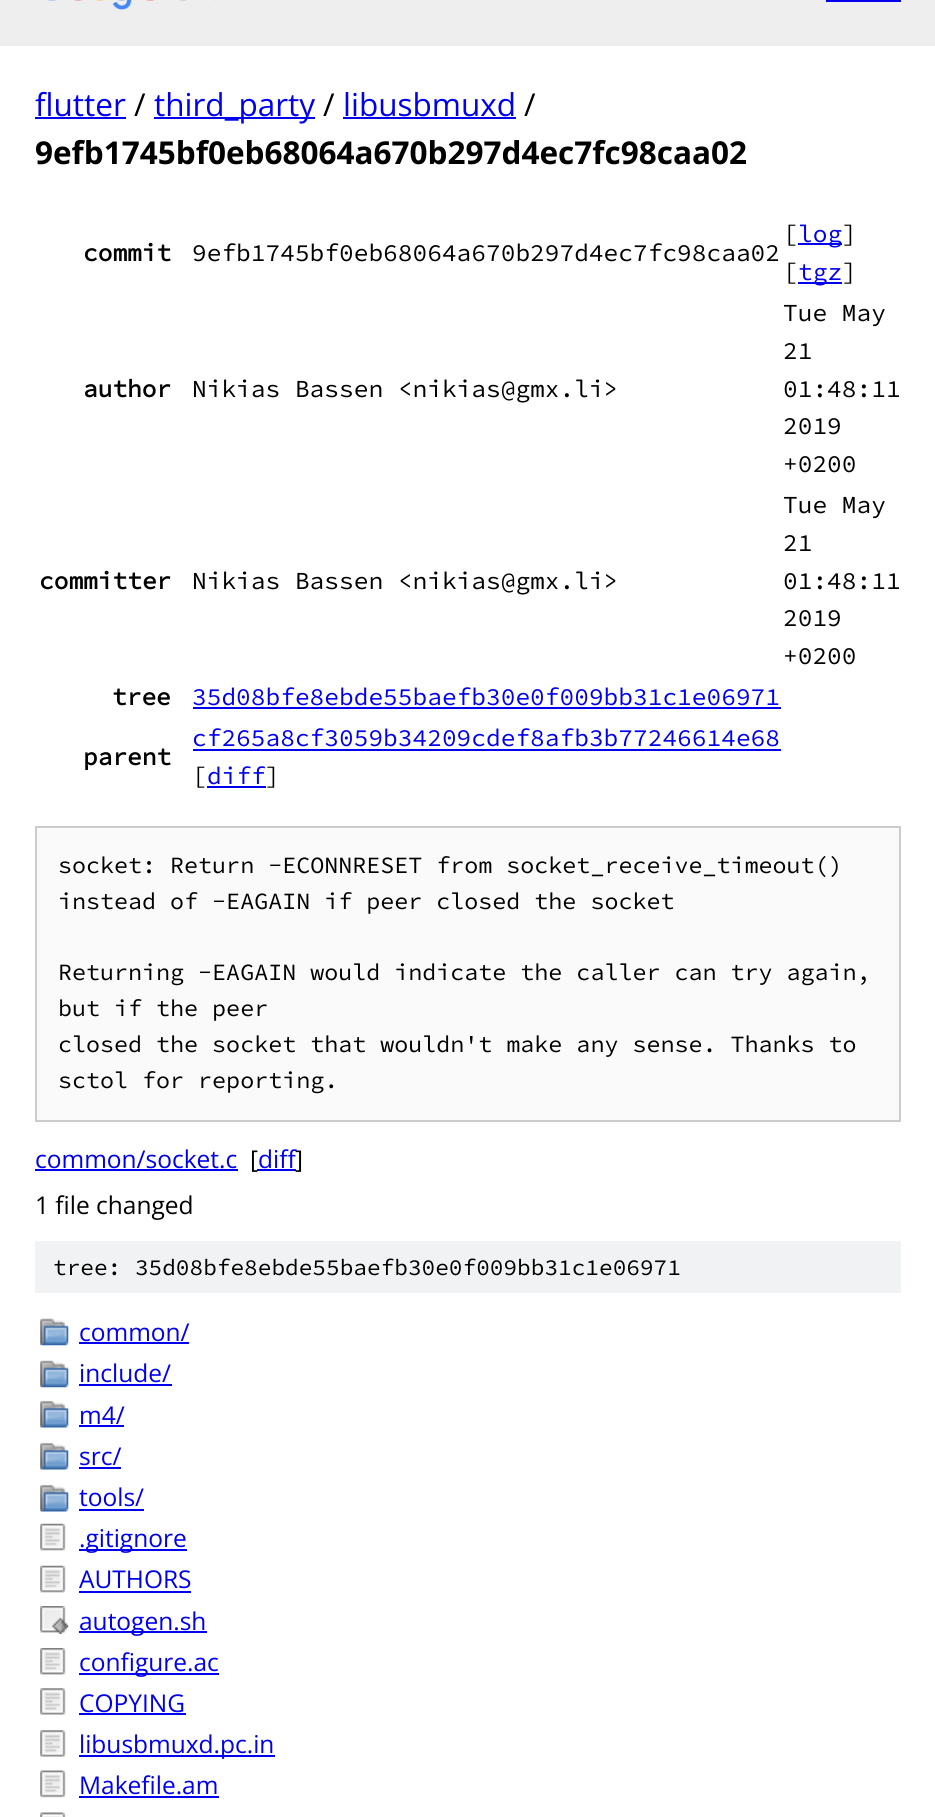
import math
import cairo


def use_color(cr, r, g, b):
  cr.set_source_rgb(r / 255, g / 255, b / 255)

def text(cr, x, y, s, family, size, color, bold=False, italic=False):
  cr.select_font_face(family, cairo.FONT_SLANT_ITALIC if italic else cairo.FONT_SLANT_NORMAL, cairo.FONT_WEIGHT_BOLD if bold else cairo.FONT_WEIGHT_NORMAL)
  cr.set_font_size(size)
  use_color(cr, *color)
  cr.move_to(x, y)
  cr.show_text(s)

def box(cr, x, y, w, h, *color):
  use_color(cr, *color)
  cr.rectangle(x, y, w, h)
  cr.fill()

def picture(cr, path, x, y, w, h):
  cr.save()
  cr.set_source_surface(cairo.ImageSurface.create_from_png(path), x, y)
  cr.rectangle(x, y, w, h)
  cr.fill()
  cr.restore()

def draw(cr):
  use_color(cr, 255, 255, 255)
  cr.paint()
  box(cr, 0, 0, 935, 46, 238, 238, 238)
  picture(cr, "img_01.png", 47, 0, 170, 10)
  box(cr, 826, 0, 75, 2, 0, 0, 238)
  box(cr, 35, 117, 91, 2, 0, 0, 238)
  box(cr, 154, 117, 161, 2, 0, 0, 238)
  box(cr, 343, 117, 173, 2, 0, 0, 238)
  box(cr, 798, 243, 44, 2, 0, 0, 238)
  box(cr, 798, 282, 44, 2, 0, 0, 238)
  box(cr, 193, 707, 588, 2, 0, 0, 238)
  box(cr, 193, 749, 588, 2, 0, 0, 238)
  box(cr, 207, 786, 59, 2, 0, 0, 238)
  use_color(cr, 250, 250, 250)
  cr.rectangle(36, 827, 864, 294)
  cr.fill_preserve()
  use_color(cr, 204, 204, 204)
  cr.stroke()
  box(cr, 35, 1169, 203, 2, 0, 0, 238)
  box(cr, 257, 1169, 39, 2, 0, 0, 238)
  box(cr, 35, 1241, 866, 52, 241, 242, 243)
  picture(cr, "img_02.png", 40, 1318, 29, 28)
  box(cr, 79, 1342, 110, 2, 0, 0, 238)
  picture(cr, "img_02.png", 40, 1360, 29, 28)
  box(cr, 79, 1384, 93, 2, 0, 0, 238)
  picture(cr, "img_03.png", 40, 1400, 29, 28)
  box(cr, 79, 1425, 45, 2, 0, 0, 238)
  picture(cr, "img_03.png", 40, 1442, 29, 28)
  box(cr, 79, 1467, 42, 2, 0, 0, 238)
  picture(cr, "img_03.png", 40, 1484, 29, 28)
  box(cr, 79, 1509, 65, 2, 0, 0, 238)
  picture(cr, "img_04.png", 40, 1523, 26, 28)
  box(cr, 79, 1549, 108, 2, 0, 0, 238)
  picture(cr, "img_04.png", 40, 1565, 26, 28)
  box(cr, 79, 1591, 112, 2, 0, 0, 238)
  picture(cr, "img_05.png", 40, 1606, 29, 28)
  box(cr, 79, 1631, 128, 2, 0, 0, 238)
  picture(cr, "img_06.png", 40, 1648, 26, 27)
  box(cr, 79, 1673, 140, 2, 0, 0, 238)
  picture(cr, "img_07.png", 40, 1688, 26, 27)
  box(cr, 79, 1713, 107, 2, 0, 0, 238)
  picture(cr, "img_08.png", 40, 1730, 26, 27)
  box(cr, 79, 1755, 196, 2, 0, 0, 238)
  picture(cr, "img_09.png", 40, 1770, 26, 28)
  box(cr, 79, 1796, 140, 2, 0, 0, 238)
  picture(cr, "img_10.png", 40, 1812, 26, 5)
  text(cr, 35, 116, "flutter", "Open Sans", 31.5, (0, 0, 238))
  text(cr, 134, 116, "/", "Open Sans", 31.5, (0, 0, 0))
  text(cr, 154, 116, "third_party", "Open Sans", 31.5, (0, 0, 238))
  text(cr, 323, 116, "/", "Open Sans", 31.5, (0, 0, 0))
  text(cr, 343, 116, "libusbmuxd", "Open Sans", 31.5, (0, 0, 238))
  text(cr, 524, 116, "/", "Open Sans", 31.5, (0, 0, 0))
  text(cr, 35, 164, "9efb1745bf0eb68064a670b297d4ec7fc98caa02", "Open Sans", 31.5, (0, 0, 0), bold=True)
  text(cr, 83, 261, "commit", "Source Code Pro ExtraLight", 24.5, (0, 0, 0), bold=True)
  text(cr, 192, 261, "9efb1745bf0eb68064a670b297d4ec7fc98caa02", "Source Code Pro ExtraLight ExtraLight", 24.5, (0, 0, 0))
  text(cr, 783, 242, "[", "Source Code Pro ExtraLight ExtraLight", 24.5, (0, 0, 0))
  text(cr, 798, 242, "log", "Source Code Pro ExtraLight ExtraLight", 24.5, (0, 0, 238))
  text(cr, 842, 242, "]", "Source Code Pro ExtraLight ExtraLight", 24.5, (0, 0, 0))
  text(cr, 783, 280, "[", "Source Code Pro ExtraLight ExtraLight", 24.5, (0, 0, 0))
  text(cr, 798, 280, "tgz", "Source Code Pro ExtraLight ExtraLight", 24.5, (0, 0, 238))
  text(cr, 842, 280, "]", "Source Code Pro ExtraLight ExtraLight", 24.5, (0, 0, 0))
  text(cr, 83, 397, "author", "Source Code Pro ExtraLight", 24.5, (0, 0, 0), bold=True)
  text(cr, 192, 397, "Nikias Bassen <nikias@gmx.li>", "Source Code Pro ExtraLight ExtraLight", 24.5, (0, 0, 0))
  text(cr, 783, 321, "Tue May", "Source Code Pro ExtraLight ExtraLight", 24.5, (0, 0, 0))
  text(cr, 783, 359, "21", "Source Code Pro ExtraLight ExtraLight", 24.5, (0, 0, 0))
  text(cr, 783, 397, "01:48:11", "Source Code Pro ExtraLight ExtraLight", 24.5, (0, 0, 0))
  text(cr, 783, 434, "2019", "Source Code Pro ExtraLight ExtraLight", 24.5, (0, 0, 0))
  text(cr, 783, 472, "+0200", "Source Code Pro ExtraLight ExtraLight", 24.5, (0, 0, 0))
  text(cr, 39, 589, "committer", "Source Code Pro ExtraLight", 24.5, (0, 0, 0), bold=True)
  text(cr, 192, 589, "Nikias Bassen <nikias@gmx.li>", "Source Code Pro ExtraLight ExtraLight", 24.5, (0, 0, 0))
  text(cr, 783, 513, "Tue May", "Source Code Pro ExtraLight ExtraLight", 24.5, (0, 0, 0))
  text(cr, 783, 551, "21", "Source Code Pro ExtraLight ExtraLight", 24.5, (0, 0, 0))
  text(cr, 783, 589, "01:48:11", "Source Code Pro ExtraLight ExtraLight", 24.5, (0, 0, 0))
  text(cr, 783, 626, "2019", "Source Code Pro ExtraLight ExtraLight", 24.5, (0, 0, 0))
  text(cr, 783, 664, "+0200", "Source Code Pro ExtraLight ExtraLight", 24.5, (0, 0, 0))
  text(cr, 112, 705, "tree", "Source Code Pro ExtraLight", 24.5, (0, 0, 0), bold=True)
  text(cr, 192, 705, "35d08bfe8ebde55baefb30e0f009bb31c1e06971", "Source Code Pro ExtraLight ExtraLight", 24.5, (0, 0, 238))
  text(cr, 83, 765, "parent", "Source Code Pro ExtraLight", 24.5, (0, 0, 0), bold=True)
  text(cr, 192, 746, "cf265a8cf3059b34209cdef8afb3b77246614e68", "Source Code Pro ExtraLight ExtraLight", 24.5, (0, 0, 238))
  text(cr, 192, 784, "[", "Source Code Pro ExtraLight ExtraLight", 24.5, (0, 0, 0))
  text(cr, 207, 784, "diff", "Source Code Pro ExtraLight ExtraLight", 24.5, (0, 0, 238))
  text(cr, 265, 784, "]", "Source Code Pro ExtraLight ExtraLight", 24.5, (0, 0, 0))
  text(cr, 58, 873, "socket: Return -ECONNRESET from socket_receive_timeout()", "Source Code Pro ExtraLight ExtraLight", 23.35, (0, 0, 0))
  text(cr, 58, 909, "instead of -EAGAIN if peer closed the socket", "Source Code Pro ExtraLight ExtraLight", 23.35, (0, 0, 0))
  text(cr, 58, 980, "Returning -EAGAIN would indicate the caller can try again,", "Source Code Pro ExtraLight ExtraLight", 23.35, (0, 0, 0))
  text(cr, 58, 1016, "but if the peer", "Source Code Pro ExtraLight ExtraLight", 23.35, (0, 0, 0))
  text(cr, 58, 1052, "closed the socket that wouldn't make any sense. Thanks to", "Source Code Pro ExtraLight ExtraLight", 23.35, (0, 0, 0))
  text(cr, 58, 1088, "sctol for reporting.", "Source Code Pro ExtraLight ExtraLight", 23.35, (0, 0, 0))
  text(cr, 35, 1168, "common/socket.c", "Open Sans", 24.5, (0, 0, 238))
  text(cr, 250, 1168, "[", "Open Sans", 24.5, (0, 0, 0))
  text(cr, 258, 1168, "diff", "Open Sans", 24.5, (0, 0, 238))
  text(cr, 295, 1168, "]", "Open Sans", 24.5, (0, 0, 0))
  text(cr, 35, 1214, "1 file changed", "Open Sans", 24.5, (0, 0, 0))
  text(cr, 53, 1275, "tree: 35d08bfe8ebde55baefb30e0f009bb31c1e06971", "Source Code Pro ExtraLight ExtraLight", 22.75, (0, 0, 0))
  text(cr, 79, 1341, "common/", "Open Sans", 24.5, (0, 0, 238))
  text(cr, 79, 1382, "include/", "Open Sans", 24.5, (0, 0, 238))
  text(cr, 79, 1424, "m4/", "Open Sans", 24.5, (0, 0, 238))
  text(cr, 79, 1465, "src/", "Open Sans", 24.5, (0, 0, 238))
  text(cr, 79, 1506, "tools/", "Open Sans", 24.5, (0, 0, 238))
  text(cr, 79, 1547, ".gitignore", "Open Sans", 24.5, (0, 0, 238))
  text(cr, 79, 1588, "AUTHORS", "Open Sans", 24.5, (0, 0, 238))
  text(cr, 79, 1630, "autogen.sh", "Open Sans", 24.5, (0, 0, 238))
  text(cr, 79, 1671, "configure.ac", "Open Sans", 24.5, (0, 0, 238))
  text(cr, 79, 1712, "COPYING", "Open Sans", 24.5, (0, 0, 238))
  text(cr, 79, 1753, "libusbmuxd.pc.in", "Open Sans", 24.5, (0, 0, 238))
  text(cr, 79, 1794, "Makefile.am", "Open Sans", 24.5, (0, 0, 238))


surface = cairo.ImageSurface(cairo.FORMAT_RGB24, 935, 1817)
cr = cairo.Context(surface)
options = cairo.FontOptions()
options.set_hint_metrics(cairo.HINT_METRICS_OFF)
options.set_hint_style(cairo.HINT_STYLE_NONE)
cr.set_font_options(options)
cr.set_miter_limit(4)
draw(cr)
surface.write_to_png("out.png")
